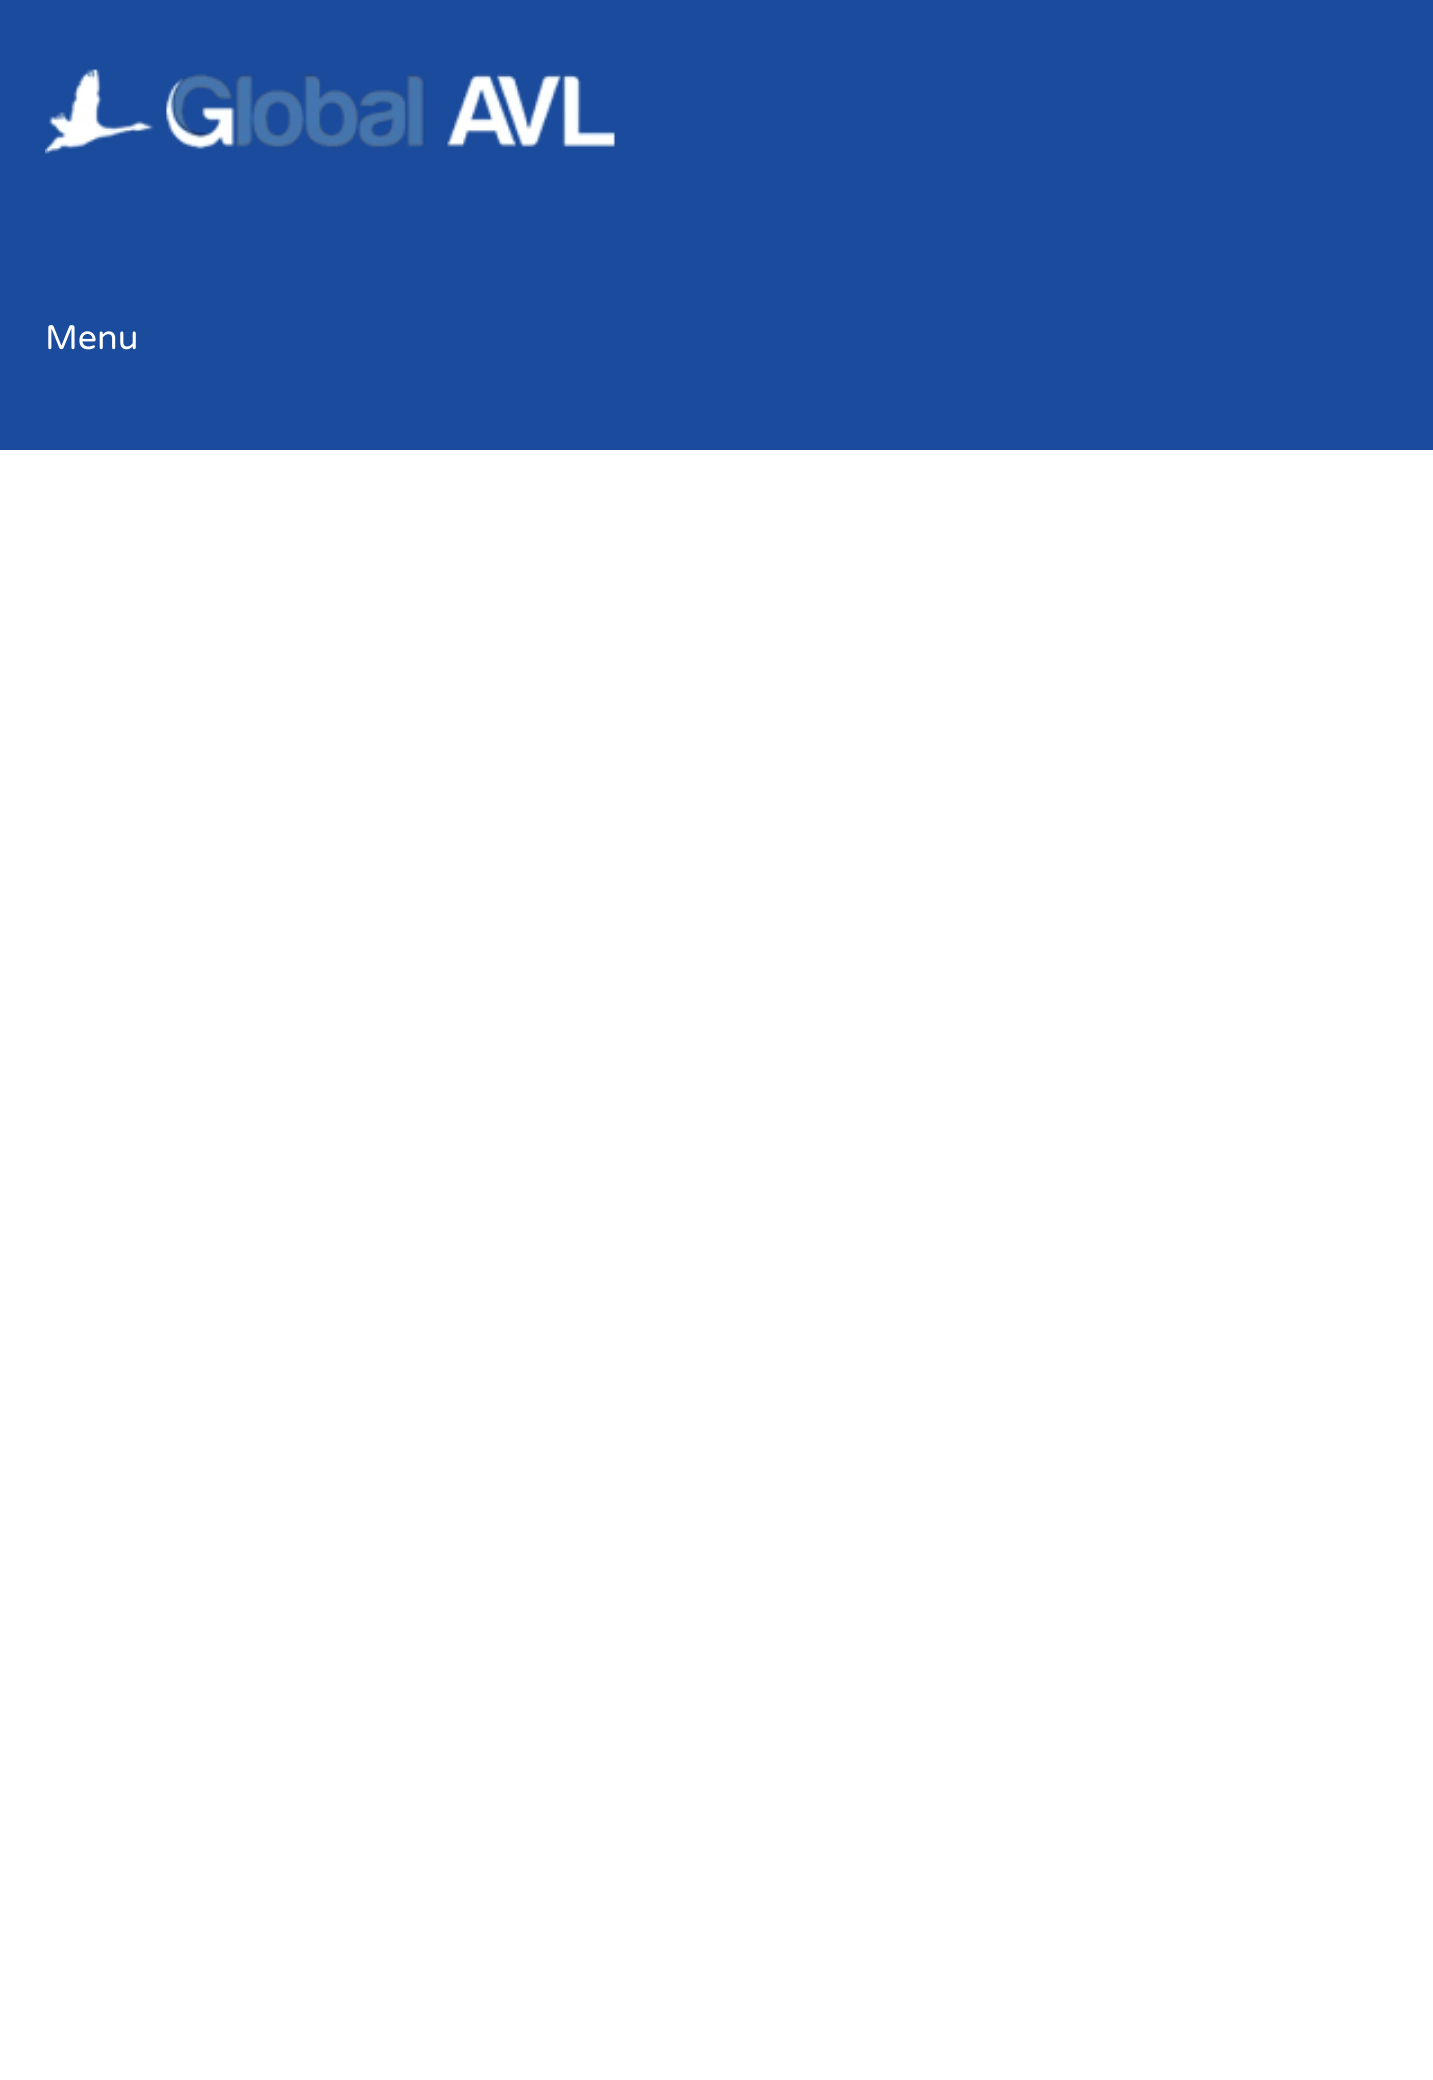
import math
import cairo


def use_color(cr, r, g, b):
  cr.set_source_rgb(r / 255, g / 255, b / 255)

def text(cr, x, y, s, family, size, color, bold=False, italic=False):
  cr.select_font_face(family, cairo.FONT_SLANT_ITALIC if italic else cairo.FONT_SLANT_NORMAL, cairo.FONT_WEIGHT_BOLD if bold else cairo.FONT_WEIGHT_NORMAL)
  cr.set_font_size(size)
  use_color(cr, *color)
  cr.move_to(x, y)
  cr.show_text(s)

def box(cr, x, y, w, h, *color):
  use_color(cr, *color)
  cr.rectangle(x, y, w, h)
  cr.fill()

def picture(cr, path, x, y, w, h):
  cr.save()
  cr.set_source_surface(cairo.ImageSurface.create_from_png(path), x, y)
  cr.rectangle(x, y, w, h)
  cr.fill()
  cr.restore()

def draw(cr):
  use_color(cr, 255, 255, 255)
  cr.paint()
  box(cr, 0, 0, 1433, 450, 26, 75, 156)
  picture(cr, "img_01.png", 45, 69, 570, 85)
  text(cr, 45, 349, "Menu", "Varela Round", 34, (255, 255, 255))


surface = cairo.ImageSurface(cairo.FORMAT_RGB24, 1433, 2080)
cr = cairo.Context(surface)
options = cairo.FontOptions()
options.set_hint_metrics(cairo.HINT_METRICS_OFF)
options.set_hint_style(cairo.HINT_STYLE_NONE)
cr.set_font_options(options)
cr.set_miter_limit(4)
draw(cr)
surface.write_to_png("out.png")
